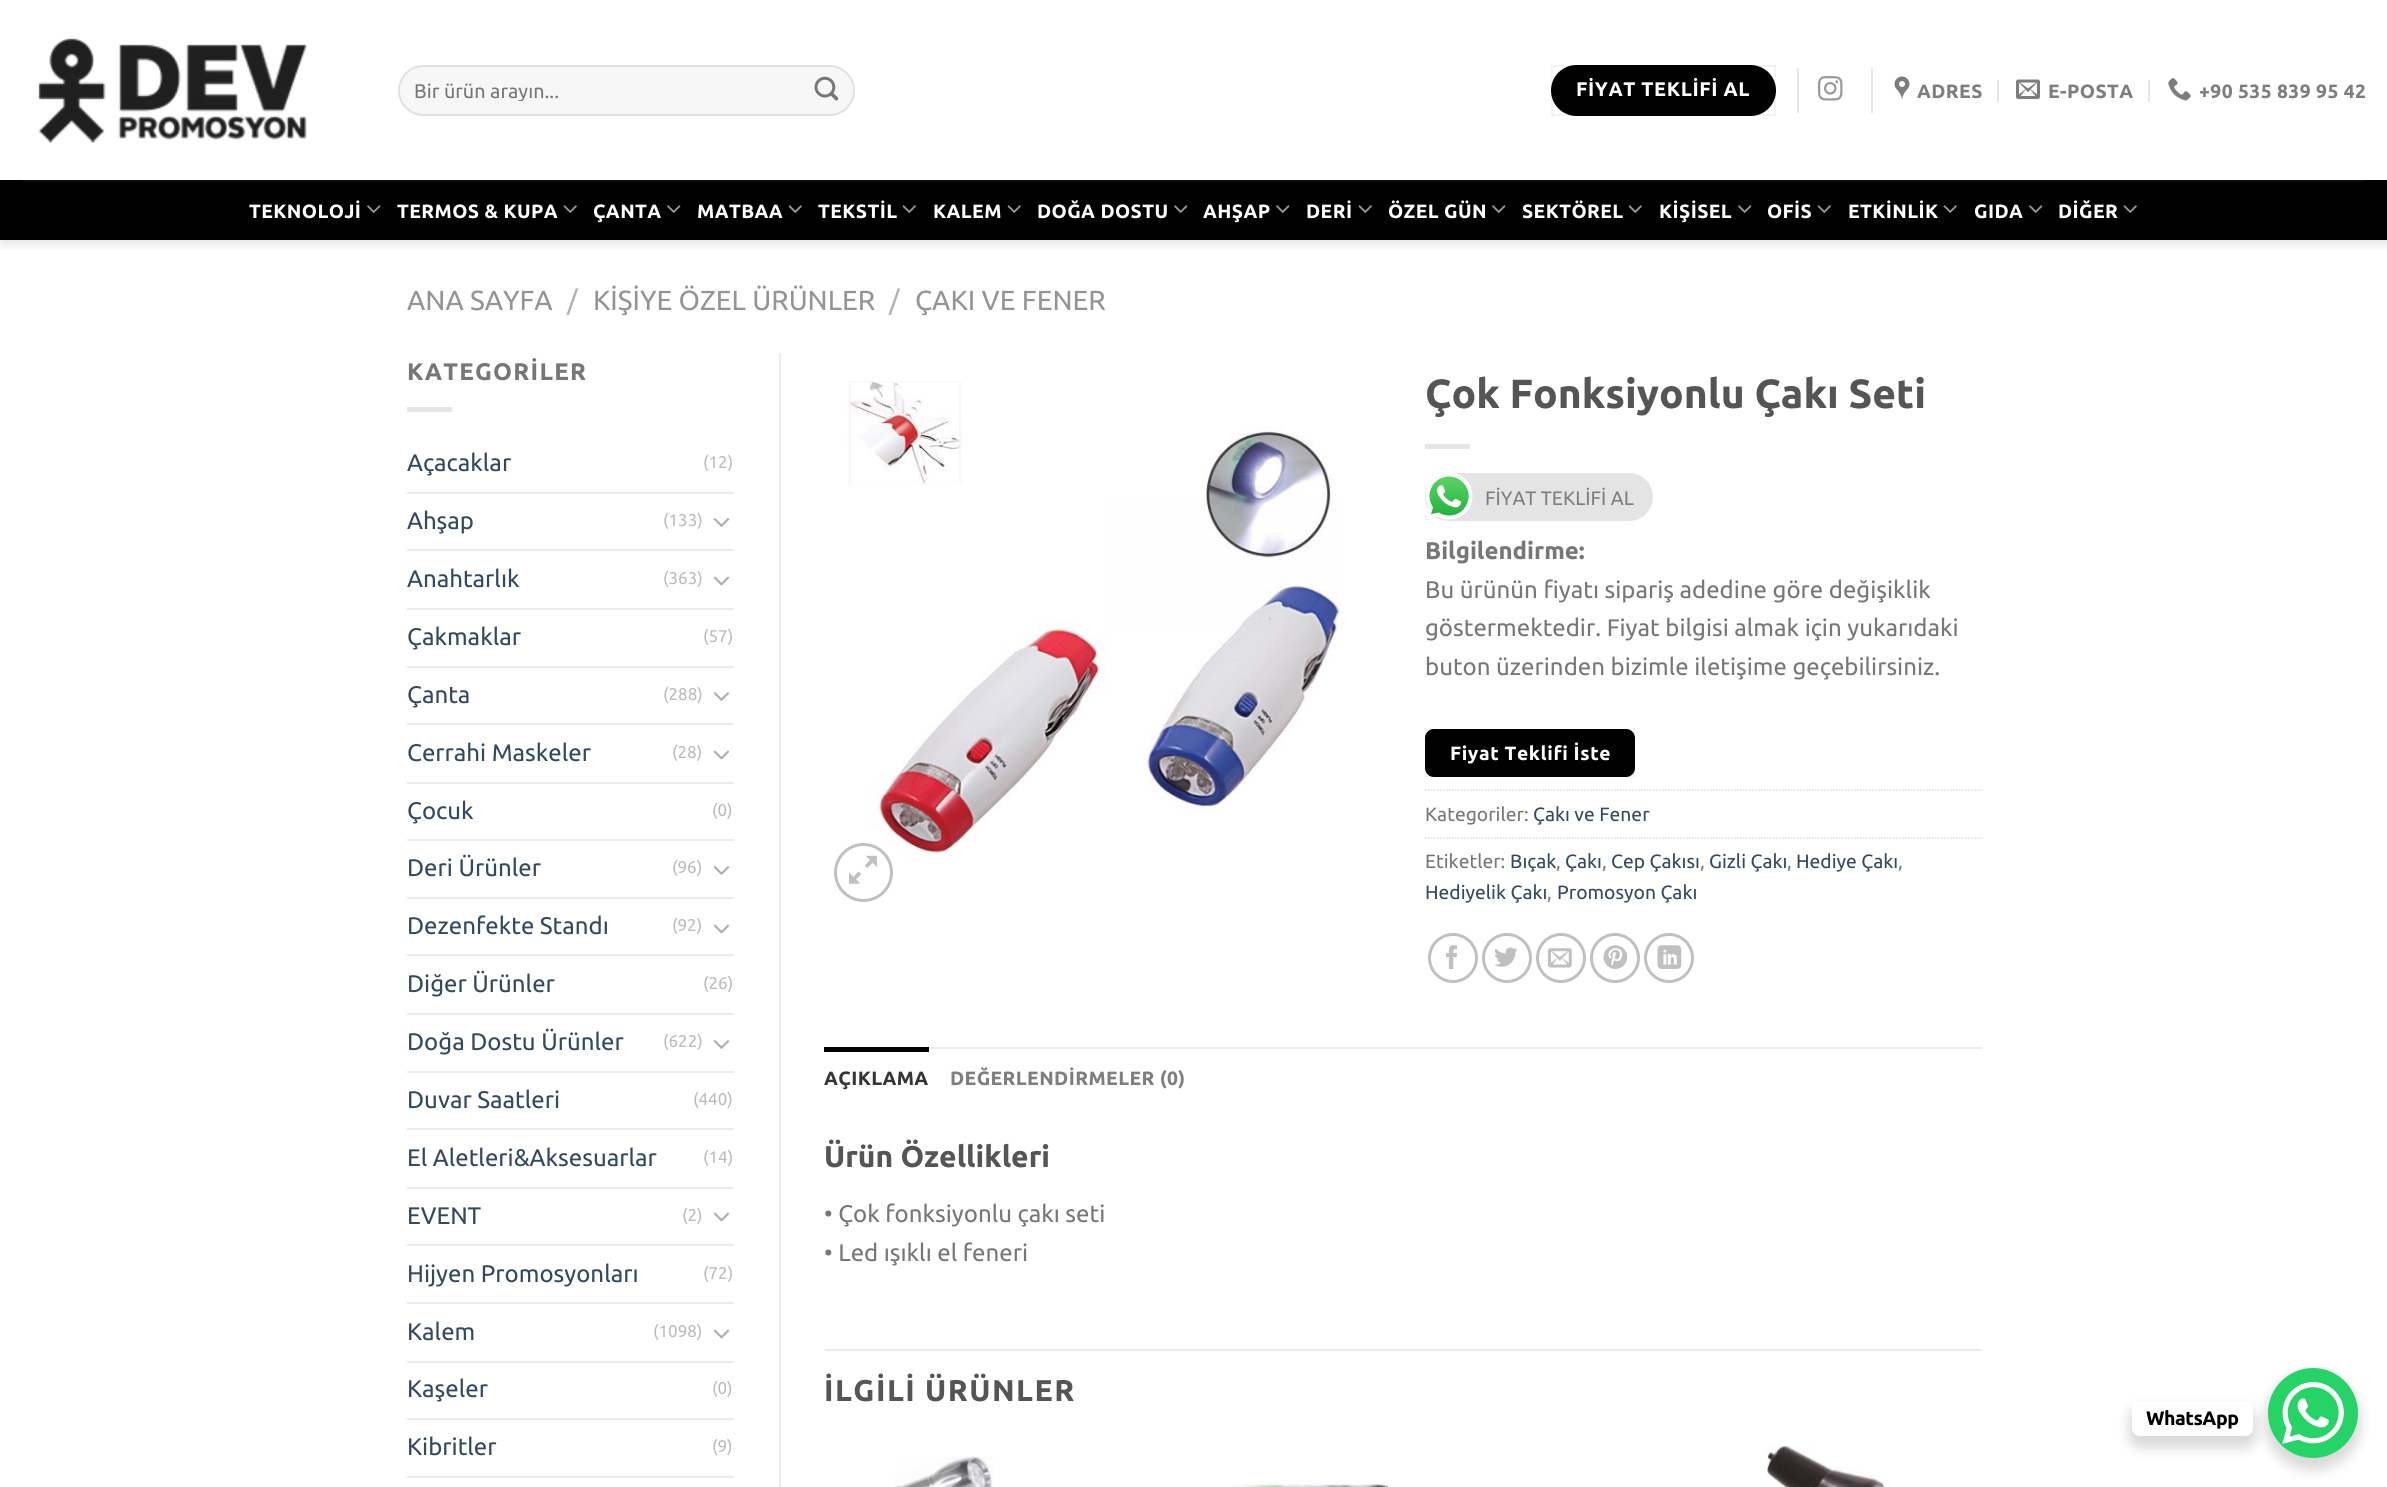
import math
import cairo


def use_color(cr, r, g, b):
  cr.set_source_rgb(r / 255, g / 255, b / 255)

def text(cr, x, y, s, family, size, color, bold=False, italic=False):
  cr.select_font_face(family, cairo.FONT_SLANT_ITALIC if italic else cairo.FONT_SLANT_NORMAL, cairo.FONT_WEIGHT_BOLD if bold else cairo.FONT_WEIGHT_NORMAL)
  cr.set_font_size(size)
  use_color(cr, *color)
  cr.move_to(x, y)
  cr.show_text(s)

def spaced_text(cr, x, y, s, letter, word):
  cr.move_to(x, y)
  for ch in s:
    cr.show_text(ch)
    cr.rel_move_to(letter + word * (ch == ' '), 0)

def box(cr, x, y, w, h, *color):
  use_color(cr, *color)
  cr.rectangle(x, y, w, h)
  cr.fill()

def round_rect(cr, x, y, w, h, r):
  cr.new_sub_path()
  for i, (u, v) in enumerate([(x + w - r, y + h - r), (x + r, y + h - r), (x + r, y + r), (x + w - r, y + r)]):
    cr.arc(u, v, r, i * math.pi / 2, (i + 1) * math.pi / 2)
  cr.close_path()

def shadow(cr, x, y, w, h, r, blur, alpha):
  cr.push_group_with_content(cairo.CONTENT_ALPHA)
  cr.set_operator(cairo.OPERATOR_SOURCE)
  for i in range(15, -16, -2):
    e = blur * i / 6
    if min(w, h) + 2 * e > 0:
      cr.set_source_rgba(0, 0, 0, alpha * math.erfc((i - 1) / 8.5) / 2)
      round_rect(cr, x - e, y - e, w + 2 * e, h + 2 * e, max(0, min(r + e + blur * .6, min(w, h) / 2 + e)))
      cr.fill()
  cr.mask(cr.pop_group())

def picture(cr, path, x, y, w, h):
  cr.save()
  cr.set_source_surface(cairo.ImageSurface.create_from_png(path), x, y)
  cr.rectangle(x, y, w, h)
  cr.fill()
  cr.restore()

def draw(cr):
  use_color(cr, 255, 255, 255)
  cr.paint()
  cr.save()
  cr.rectangle(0, 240, 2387, 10)
  cr.clip()
  use_color(cr, 0, 0, 0)
  shadow(cr, 2, 2, 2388, 240, 0, 7.5, 0.15)
  cr.restore()
  picture(cr, "img_01.png", 38, 38, 269, 105)
  use_color(cr, 247, 247, 247)
  round_rect(cr, 398, 65, 457, 51, 25.5)
  cr.fill()
  round_rect(cr, 399, 66, 455, 49, 24.5)
  cr.set_source_rgba(0, 0, 0, 0.09)
  cr.stroke()
  picture(cr, "img_02.png", 814, 76, 25, 25)
  use_color(cr, 0, 0, 0)
  round_rect(cr, 1551, 65, 225, 51, 25.5)
  cr.fill()
  cr.rectangle(1552, 66, 223, 49)
  cr.set_source_rgba(0, 0, 0, 0.05)
  cr.stroke()
  box(cr, 1797, 68, 2, 45, 230, 230, 230)
  picture(cr, "img_03.png", 1818, 76, 25, 25)
  box(cr, 1871, 68, 2, 45, 230, 230, 230)
  picture(cr, "img_04.png", 1894, 76, 16, 24)
  box(cr, 1997, 80, 2, 22, 230, 230, 230)
  picture(cr, "img_05.png", 2016, 79, 24, 20)
  box(cr, 2148, 80, 2, 22, 230, 230, 230)
  picture(cr, "img_06.png", 2168, 78, 23, 23)
  box(cr, 0, 180, 2387, 60, 0, 0, 0)
  box(cr, 23, 180, 2343, 2, 12, 12, 12)
  picture(cr, "img_07.png", 367, 205, 14, 8)
  picture(cr, "img_08.png", 563, 205, 14, 8)
  picture(cr, "img_07.png", 667, 205, 14, 8)
  picture(cr, "img_08.png", 788, 205, 14, 8)
  picture(cr, "img_08.png", 902, 205, 14, 8)
  picture(cr, "img_08.png", 1007, 205, 14, 8)
  picture(cr, "img_07.png", 1174, 205, 14, 8)
  picture(cr, "img_07.png", 1276, 205, 14, 8)
  picture(cr, "img_08.png", 1358, 205, 14, 8)
  picture(cr, "img_07.png", 1492, 205, 14, 8)
  picture(cr, "img_08.png", 1628, 205, 14, 8)
  picture(cr, "img_07.png", 1738, 205, 14, 8)
  picture(cr, "img_08.png", 1817, 205, 14, 8)
  picture(cr, "img_08.png", 1943, 205, 14, 8)
  picture(cr, "img_07.png", 2029, 205, 14, 8)
  picture(cr, "img_08.png", 2123, 205, 14, 8)
  box(cr, 407, 407, 45, 5, 230, 230, 230)
  box(cr, 407, 492, 327, 2, 236, 236, 236)
  picture(cr, "img_09.png", 713, 518, 17, 9)
  box(cr, 407, 549, 327, 2, 236, 236, 236)
  picture(cr, "img_10.png", 713, 576, 17, 10)
  box(cr, 407, 608, 327, 2, 236, 236, 236)
  box(cr, 407, 666, 327, 2, 236, 236, 236)
  picture(cr, "img_09.png", 713, 692, 17, 9)
  box(cr, 407, 723, 327, 2, 236, 236, 236)
  picture(cr, "img_10.png", 713, 750, 17, 10)
  box(cr, 407, 782, 327, 2, 236, 236, 236)
  box(cr, 407, 839, 327, 2, 236, 236, 236)
  picture(cr, "img_09.png", 713, 866, 17, 9)
  box(cr, 407, 897, 327, 2, 236, 236, 236)
  picture(cr, "img_10.png", 713, 924, 17, 10)
  box(cr, 407, 954, 327, 2, 236, 236, 236)
  box(cr, 407, 1013, 327, 2, 236, 236, 236)
  picture(cr, "img_09.png", 713, 1040, 17, 9)
  box(cr, 407, 1071, 327, 2, 236, 236, 236)
  box(cr, 407, 1128, 327, 2, 236, 236, 236)
  box(cr, 407, 1187, 327, 2, 236, 236, 236)
  picture(cr, "img_10.png", 713, 1212, 17, 10)
  box(cr, 407, 1244, 327, 2, 236, 236, 236)
  box(cr, 407, 1302, 327, 2, 236, 236, 236)
  picture(cr, "img_10.png", 713, 1329, 17, 10)
  box(cr, 407, 1361, 327, 2, 236, 236, 236)
  box(cr, 407, 1418, 327, 2, 236, 236, 236)
  box(cr, 407, 1476, 327, 2, 236, 236, 236)
  box(cr, 779, 353, 2, 1134, 236, 236, 236)
  picture(cr, "img_11.png", 847, 381, 496, 476)
  cr.arc(863.5, 872.5, 28, 0, 2 * math.pi)
  use_color(cr, 192, 192, 192)
  cr.set_line_width(3)
  cr.stroke()
  picture(cr, "img_12.png", 849, 855, 28, 29)
  box(cr, 1425, 444, 45, 5, 230, 230, 230)
  use_color(cr, 228, 228, 228)
  round_rect(cr, 1425, 473, 228, 48, 24)
  cr.fill()
  picture(cr, "img_13.png", 1425, 472, 48, 49)
  use_color(cr, 0, 0, 0)
  round_rect(cr, 1425, 729, 210, 48, 9)
  cr.fill()
  cr.rectangle(1426, 730, 208, 46)
  cr.set_source_rgba(0, 0, 0, 0.05)
  cr.set_line_width(2)
  cr.stroke()
  cr.new_path()
  cr.move_to(1425, 790)
  cr.line_to(1981.5, 790)
  use_color(cr, 221, 221, 221)
  cr.set_line_width(1.5)
  cr.set_dash([1.5, 1.5])
  cr.stroke()
  cr.new_path()
  cr.move_to(1425, 838)
  cr.line_to(1981.5, 838)
  cr.stroke()
  cr.arc(1453, 958, 23.5, 0, 2 * math.pi)
  use_color(cr, 192, 192, 192)
  cr.set_line_width(3)
  cr.set_dash([])
  cr.stroke()
  picture(cr, "img_14.png", 1446, 945, 11, 24)
  cr.arc(1507, 958, 23.5, 0, 2 * math.pi)
  cr.stroke()
  picture(cr, "img_15.png", 1494, 947, 24, 20)
  cr.arc(1561, 958, 23.5, 0, 2 * math.pi)
  cr.stroke()
  picture(cr, "img_16.png", 1548, 948, 24, 20)
  cr.arc(1615, 958, 23.5, 0, 2 * math.pi)
  cr.stroke()
  picture(cr, "img_17.png", 1603, 945, 25, 24)
  cr.arc(1669, 958, 23.5, 0, 2 * math.pi)
  cr.stroke()
  picture(cr, "img_18.png", 1657, 945, 25, 24)
  box(cr, 929, 1047, 1053, 2, 236, 236, 236)
  box(cr, 824, 1047, 105, 5, 0, 0, 0)
  box(cr, 825, 1349, 1157, 2, 236, 236, 236)
  picture(cr, "img_19.png", 895, 1456, 98, 31)
  picture(cr, "img_20.png", 1232, 1482, 156, 5)
  picture(cr, "img_21.png", 1765, 1446, 120, 41)
  use_color(cr, 0, 0, 0)
  shadow(cr, 2265, 1374, 96, 96, 48, 6, 0.15)
  use_color(cr, 37, 211, 102)
  cr.arc(2313, 1413, 45, 0, 2 * math.pi)
  cr.fill()
  use_color(cr, 0, 0, 0)
  shadow(cr, 2129, 1407, 127, 41, 11, 6, 0.15)
  use_color(cr, 255, 255, 255)
  round_rect(cr, 2132, 1401, 121, 35, 8)
  cr.fill()
  picture(cr, "img_22.png", 2282, 1382, 62, 62)
  cr.save()
  cr.rectangle(414, 80, 419, 21)
  cr.clip()
  text(cr, 414, 98, "Bir ürün arayın...", "Ubuntu", 19.75, (119, 119, 119))
  cr.restore()
  cr.select_font_face("Ubuntu", cairo.FONT_SLANT_NORMAL, cairo.FONT_WEIGHT_BOLD)
  cr.set_font_size(19.75)
  spaced_text(cr, 1576, 96, "FİYAT TEKLİFİ AL", 0.6, 0)
  cr.set_font_size(19.25)
  use_color(cr, 127, 125, 125)
  spaced_text(cr, 1917, 98, "ADRES", 0.4, 0)
  spaced_text(cr, 2048, 98, "E-POSTA", 0.4, 0)
  spaced_text(cr, 2199, 98, "+90 535 839 95 42", 0.4, 0)
  use_color(cr, 255, 255, 255)
  spaced_text(cr, 249, 218, "TEKNOLOJİ", 0.4, 0)
  spaced_text(cr, 397, 218, "TERMOS & KUPA", 0.4, 0)
  spaced_text(cr, 593, 218, "ÇANTA", 0.4, 0)
  spaced_text(cr, 697, 218, "MATBAA", 0.4, 0)
  spaced_text(cr, 818, 218, "TEKSTİL", 0.4, 0)
  spaced_text(cr, 933, 218, "KALEM", 0.4, 0)
  spaced_text(cr, 1037, 218, "DOĞA DOSTU", 0.4, 0)
  spaced_text(cr, 1203, 218, "AHŞAP", 0.4, 0)
  spaced_text(cr, 1306, 218, "DERİ", 0.4, 0)
  spaced_text(cr, 1388, 218, "ÖZEL GÜN", 0.4, 0)
  spaced_text(cr, 1522, 218, "SEKTÖREL", 0.4, 0)
  spaced_text(cr, 1659, 218, "KİŞİSEL", 0.4, 0)
  spaced_text(cr, 1767, 218, "OFİS", 0.4, 0)
  spaced_text(cr, 1848, 218, "ETKİNLİK", 0.4, 0)
  spaced_text(cr, 1974, 218, "GIDA", 0.4, 0)
  spaced_text(cr, 2058, 218, "DİĞER", 0.4, 0)
  text(cr, 407, 310, "ANA SAYFA", "Ubuntu", 27.6, (148, 148, 148))
  text(cr, 567, 310, "/", "Ubuntu", 27.6, (178, 178, 178))
  text(cr, 593, 310, "KİŞİYE ÖZEL ÜRÜNLER", "Ubuntu", 27.6, (148, 148, 148))
  text(cr, 889, 310, "/", "Ubuntu", 27.6, (178, 178, 178))
  text(cr, 915, 310, "ÇAKI VE FENER", "Ubuntu", 27.6, (148, 148, 148))
  cr.select_font_face("Ubuntu", cairo.FONT_SLANT_NORMAL, cairo.FONT_WEIGHT_BOLD)
  cr.set_font_size(24)
  use_color(cr, 119, 119, 119)
  spaced_text(cr, 407, 380, "KATEGORİLER", 1.25, 0)
  text(cr, 407, 471, "Açacaklar", "Ubuntu", 24, (51, 72, 98))
  text(cr, 703, 468, "(12)", "Ubuntu", 17, (187, 187, 187))
  text(cr, 407, 529, "Ahşap", "Ubuntu", 24, (51, 72, 98))
  text(cr, 663, 526, "(133)", "Ubuntu", 17, (187, 187, 187))
  text(cr, 407, 587, "Anahtarlık", "Ubuntu", 24, (51, 72, 98))
  text(cr, 663, 584, "(363)", "Ubuntu", 17, (187, 187, 187))
  text(cr, 407, 645, "Çakmaklar", "Ubuntu", 24, (51, 72, 98))
  text(cr, 703, 642, "(57)", "Ubuntu", 17, (187, 187, 187))
  text(cr, 407, 703, "Çanta", "Ubuntu", 24, (51, 72, 98))
  text(cr, 663, 700, "(288)", "Ubuntu", 17, (187, 187, 187))
  text(cr, 407, 761, "Cerrahi Maskeler", "Ubuntu", 24, (51, 72, 98))
  text(cr, 672, 758, "(28)", "Ubuntu", 17, (187, 187, 187))
  text(cr, 407, 819, "Çocuk", "Ubuntu", 24, (51, 72, 98))
  text(cr, 712, 816, "(0)", "Ubuntu", 17, (187, 187, 187))
  text(cr, 407, 876, "Deri Ürünler", "Ubuntu", 24, (51, 72, 98))
  text(cr, 672, 873, "(96)", "Ubuntu", 17, (187, 187, 187))
  text(cr, 407, 934, "Dezenfekte Standı", "Ubuntu", 24, (51, 72, 98))
  text(cr, 672, 931, "(92)", "Ubuntu", 17, (187, 187, 187))
  text(cr, 407, 992, "Diğer Ürünler", "Ubuntu", 24, (51, 72, 98))
  text(cr, 703, 989, "(26)", "Ubuntu", 17, (187, 187, 187))
  text(cr, 407, 1050, "Doğa Dostu Ürünler", "Ubuntu", 24, (51, 72, 98))
  text(cr, 663, 1047, "(622)", "Ubuntu", 17, (187, 187, 187))
  text(cr, 407, 1108, "Duvar Saatleri", "Ubuntu", 24, (51, 72, 98))
  text(cr, 693, 1105, "(440)", "Ubuntu", 17, (187, 187, 187))
  text(cr, 407, 1166, "El Aletleri&Aksesuarlar", "Ubuntu", 24, (51, 72, 98))
  text(cr, 703, 1163, "(14)", "Ubuntu", 17, (187, 187, 187))
  text(cr, 407, 1224, "EVENT", "Ubuntu", 24, (51, 72, 98))
  text(cr, 682, 1221, "(2)", "Ubuntu", 17, (187, 187, 187))
  text(cr, 407, 1282, "Hijyen Promosyonları", "Ubuntu", 24, (51, 72, 98))
  text(cr, 703, 1279, "(72)", "Ubuntu", 17, (187, 187, 187))
  text(cr, 407, 1340, "Kalem", "Ubuntu", 24, (51, 72, 98))
  text(cr, 653, 1337, "(1098)", "Ubuntu", 17, (187, 187, 187))
  text(cr, 407, 1397, "Kaşeler", "Ubuntu", 24, (51, 72, 98))
  text(cr, 712, 1394, "(0)", "Ubuntu", 17, (187, 187, 187))
  text(cr, 407, 1455, "Kibritler", "Ubuntu", 24, (51, 72, 98))
  text(cr, 712, 1452, "(9)", "Ubuntu", 17, (187, 187, 187))
  text(cr, 1425, 408, "Çok Fonksiyonlu Çakı Seti", "Ubuntu", 40.75, (85, 85, 85), bold=True)
  text(cr, 1485, 505, "FİYAT TEKLİFİ AL", "Ubuntu", 19.5, (127, 125, 125))
  text(cr, 1425, 559, "Bilgilendirme:", "Ubuntu", 24, (119, 119, 119), bold=True)
  text(cr, 1425, 598, "Bu ürünün fiyatı sipariş adedine göre değişiklik", "Ubuntu", 24, (119, 119, 119))
  text(cr, 1425, 636, "göstermektedir. Fiyat bilgisi almak için yukarıdaki", "Ubuntu", 24, (119, 119, 119))
  text(cr, 1425, 675, "buton üzerinden bizimle iletişime geçebilirsiniz.", "Ubuntu", 24, (119, 119, 119))
  cr.select_font_face("Ubuntu", cairo.FONT_SLANT_NORMAL, cairo.FONT_WEIGHT_BOLD)
  cr.set_font_size(19.25)
  use_color(cr, 255, 255, 255)
  spaced_text(cr, 1450, 760, "Fiyat Teklifi İste", 0.6, 0)
  text(cr, 1425, 821, "Kategoriler:", "Ubuntu", 19.25, (119, 119, 119))
  text(cr, 1533, 821, "Çakı ve Fener", "Ubuntu", 19.25, (51, 72, 98))
  text(cr, 1425, 868, "Etiketler:", "Ubuntu", 19.25, (119, 119, 119))
  text(cr, 1510, 868, "Bıçak", "Ubuntu", 19.25, (51, 72, 98))
  text(cr, 1556, 868, ",", "Ubuntu", 19.25, (119, 119, 119))
  text(cr, 1565, 868, "Çakı", "Ubuntu", 19.25, (51, 72, 98))
  text(cr, 1602, 868, ",", "Ubuntu", 19.25, (119, 119, 119))
  text(cr, 1611, 868, "Cep Çakısı", "Ubuntu", 19.25, (51, 72, 98))
  text(cr, 1700, 868, ",", "Ubuntu", 19.25, (119, 119, 119))
  text(cr, 1709, 868, "Gizli Çakı", "Ubuntu", 19.25, (51, 72, 98))
  text(cr, 1787, 868, ",", "Ubuntu", 19.25, (119, 119, 119))
  text(cr, 1796, 868, "Hediye Çakı", "Ubuntu", 19.25, (51, 72, 98))
  text(cr, 1898, 868, ",", "Ubuntu", 19.25, (119, 119, 119))
  text(cr, 1425, 899, "Hediyelik Çakı", "Ubuntu", 19.25, (51, 72, 98))
  text(cr, 1547, 899, ",", "Ubuntu", 19.25, (119, 119, 119))
  text(cr, 1557, 899, "Promosyon Çakı", "Ubuntu", 19.25, (51, 72, 98))
  cr.select_font_face("Ubuntu", cairo.FONT_SLANT_NORMAL, cairo.FONT_WEIGHT_BOLD)
  use_color(cr, 53, 53, 53)
  spaced_text(cr, 824, 1085, "AÇIKLAMA", 0.4, 0)
  use_color(cr, 127, 125, 125)
  spaced_text(cr, 950, 1085, "DEĞERLENDİRMELER (0)", 0.4, 0)
  text(cr, 824, 1167, "Ürün Özellikleri", "Ubuntu", 30, (85, 85, 85), bold=True)
  text(cr, 824, 1222, "• Çok fonksiyonlu çakı seti", "Ubuntu", 24, (119, 119, 119))
  text(cr, 824, 1261, "• Led ışıklı el feneri", "Ubuntu", 24, (119, 119, 119))
  cr.select_font_face("Ubuntu", cairo.FONT_SLANT_NORMAL, cairo.FONT_WEIGHT_BOLD)
  cr.set_font_size(30)
  use_color(cr, 85, 85, 85)
  spaced_text(cr, 824, 1401, "İLGİLİ ÜRÜNLER", 1.5, 0)
  cr.set_font_size(19.5)
  use_color(cr, 0, 0, 0)
  spaced_text(cr, 2146, 1425, "WhatsApp", -0.5, 0)


surface = cairo.ImageSurface(cairo.FORMAT_RGB24, 2387, 1487)
cr = cairo.Context(surface)
options = cairo.FontOptions()
options.set_hint_metrics(cairo.HINT_METRICS_OFF)
options.set_hint_style(cairo.HINT_STYLE_NONE)
cr.set_font_options(options)
cr.set_miter_limit(4)
draw(cr)
surface.write_to_png("out.png")
